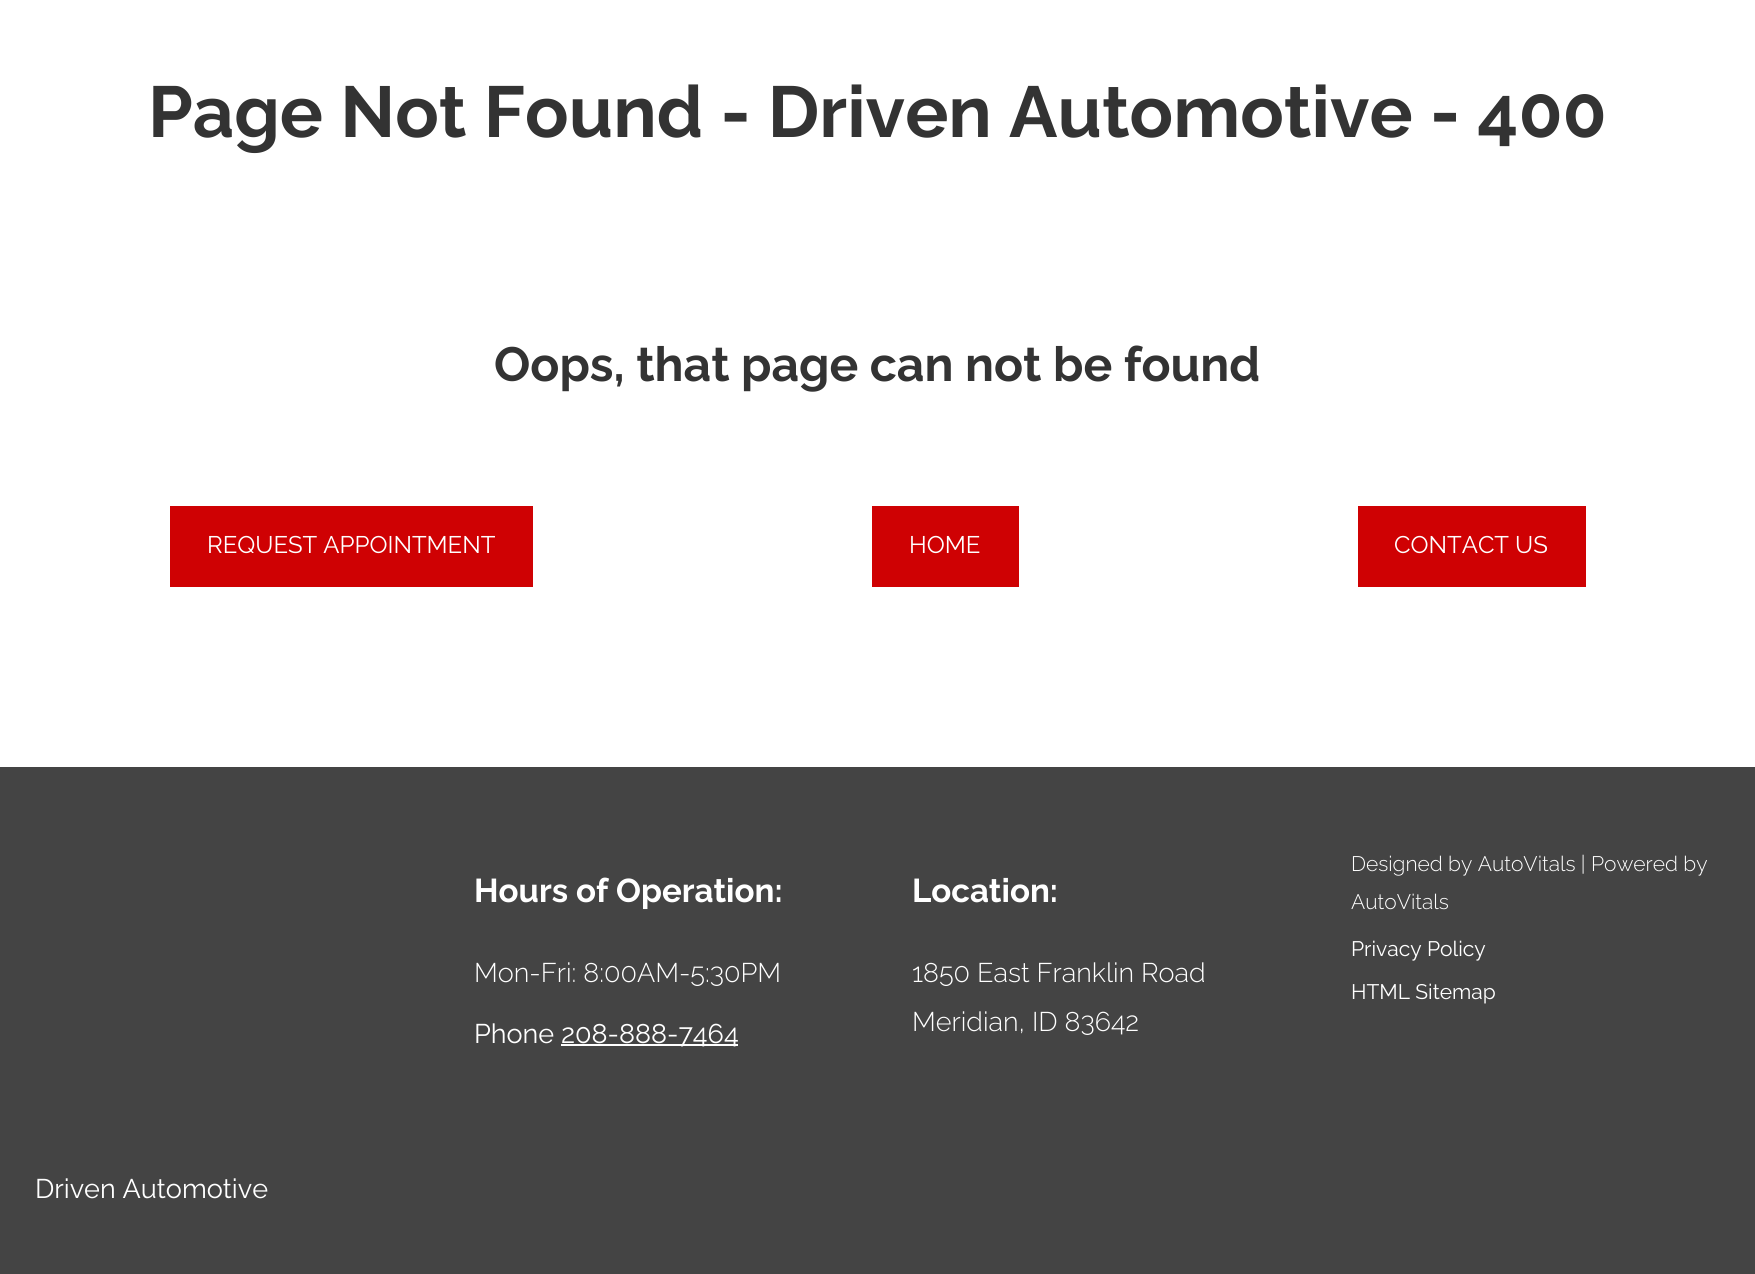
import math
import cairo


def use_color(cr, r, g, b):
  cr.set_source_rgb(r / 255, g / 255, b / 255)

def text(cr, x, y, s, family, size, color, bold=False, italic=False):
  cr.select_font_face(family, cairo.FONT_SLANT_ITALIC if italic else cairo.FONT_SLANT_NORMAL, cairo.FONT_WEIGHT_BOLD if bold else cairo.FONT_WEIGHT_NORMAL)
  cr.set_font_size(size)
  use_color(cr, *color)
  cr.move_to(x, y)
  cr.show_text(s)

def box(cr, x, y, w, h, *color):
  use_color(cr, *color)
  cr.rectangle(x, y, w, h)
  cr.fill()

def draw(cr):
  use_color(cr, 255, 255, 255)
  cr.paint()
  box(cr, 170, 506, 363, 81, 207, 1, 3)
  box(cr, 872, 506, 147, 81, 207, 1, 3)
  box(cr, 1358, 506, 228, 81, 207, 1, 3)
  box(cr, 0, 767, 1755, 507, 68, 68, 68)
  box(cr, 561, 1044, 177, 2, 255, 255, 255)
  text(cr, 148, 137, "Page Not Found - Driven Automotive - 400", "Raleway", 72, (51, 51, 51), bold=True)
  text(cr, 494, 381, "Oops, that page can not be found", "Raleway", 48, (51, 51, 51), bold=True)
  text(cr, 207, 553, "REQUEST APPOINTMENT", "Raleway", 24, (255, 255, 255))
  text(cr, 909, 553, "HOME", "Raleway", 24, (255, 255, 255))
  text(cr, 1394, 553, "CONTACT US", "Raleway", 24, (255, 255, 255))
  text(cr, 474, 902, "Hours of Operation:", "Raleway", 33, (255, 255, 255), bold=True)
  text(cr, 474, 982, "Mon-Fri: 8:00AM-5:30PM", "Raleway Light", 27, (255, 255, 255))
  text(cr, 474, 1043, "Phone", "Raleway", 27, (255, 255, 255))
  text(cr, 561, 1043, "208-888-7464", "Raleway", 27, (255, 255, 255))
  text(cr, 912, 902, "Location:", "Raleway", 33, (255, 255, 255), bold=True)
  text(cr, 912, 982, "1850 East Franklin Road", "Raleway Light", 27, (255, 255, 255))
  text(cr, 912, 1031, "Meridian, ID 83642", "Raleway Light", 27, (255, 255, 255))
  text(cr, 1351, 871, "Designed by AutoVitals | Powered by", "Raleway Light", 21, (255, 255, 255))
  text(cr, 1351, 909, "AutoVitals", "Raleway Light", 21, (255, 255, 255))
  text(cr, 1351, 956, "Privacy Policy", "Raleway", 21, (255, 255, 255))
  text(cr, 1351, 999, "HTML Sitemap", "Raleway", 21, (255, 255, 255))
  text(cr, 35, 1198, "Driven Automotive", "Raleway", 27, (255, 255, 255))


surface = cairo.ImageSurface(cairo.FORMAT_RGB24, 1755, 1274)
cr = cairo.Context(surface)
options = cairo.FontOptions()
options.set_hint_metrics(cairo.HINT_METRICS_OFF)
options.set_hint_style(cairo.HINT_STYLE_NONE)
cr.set_font_options(options)
cr.set_miter_limit(4)
draw(cr)
surface.write_to_png("out.png")
